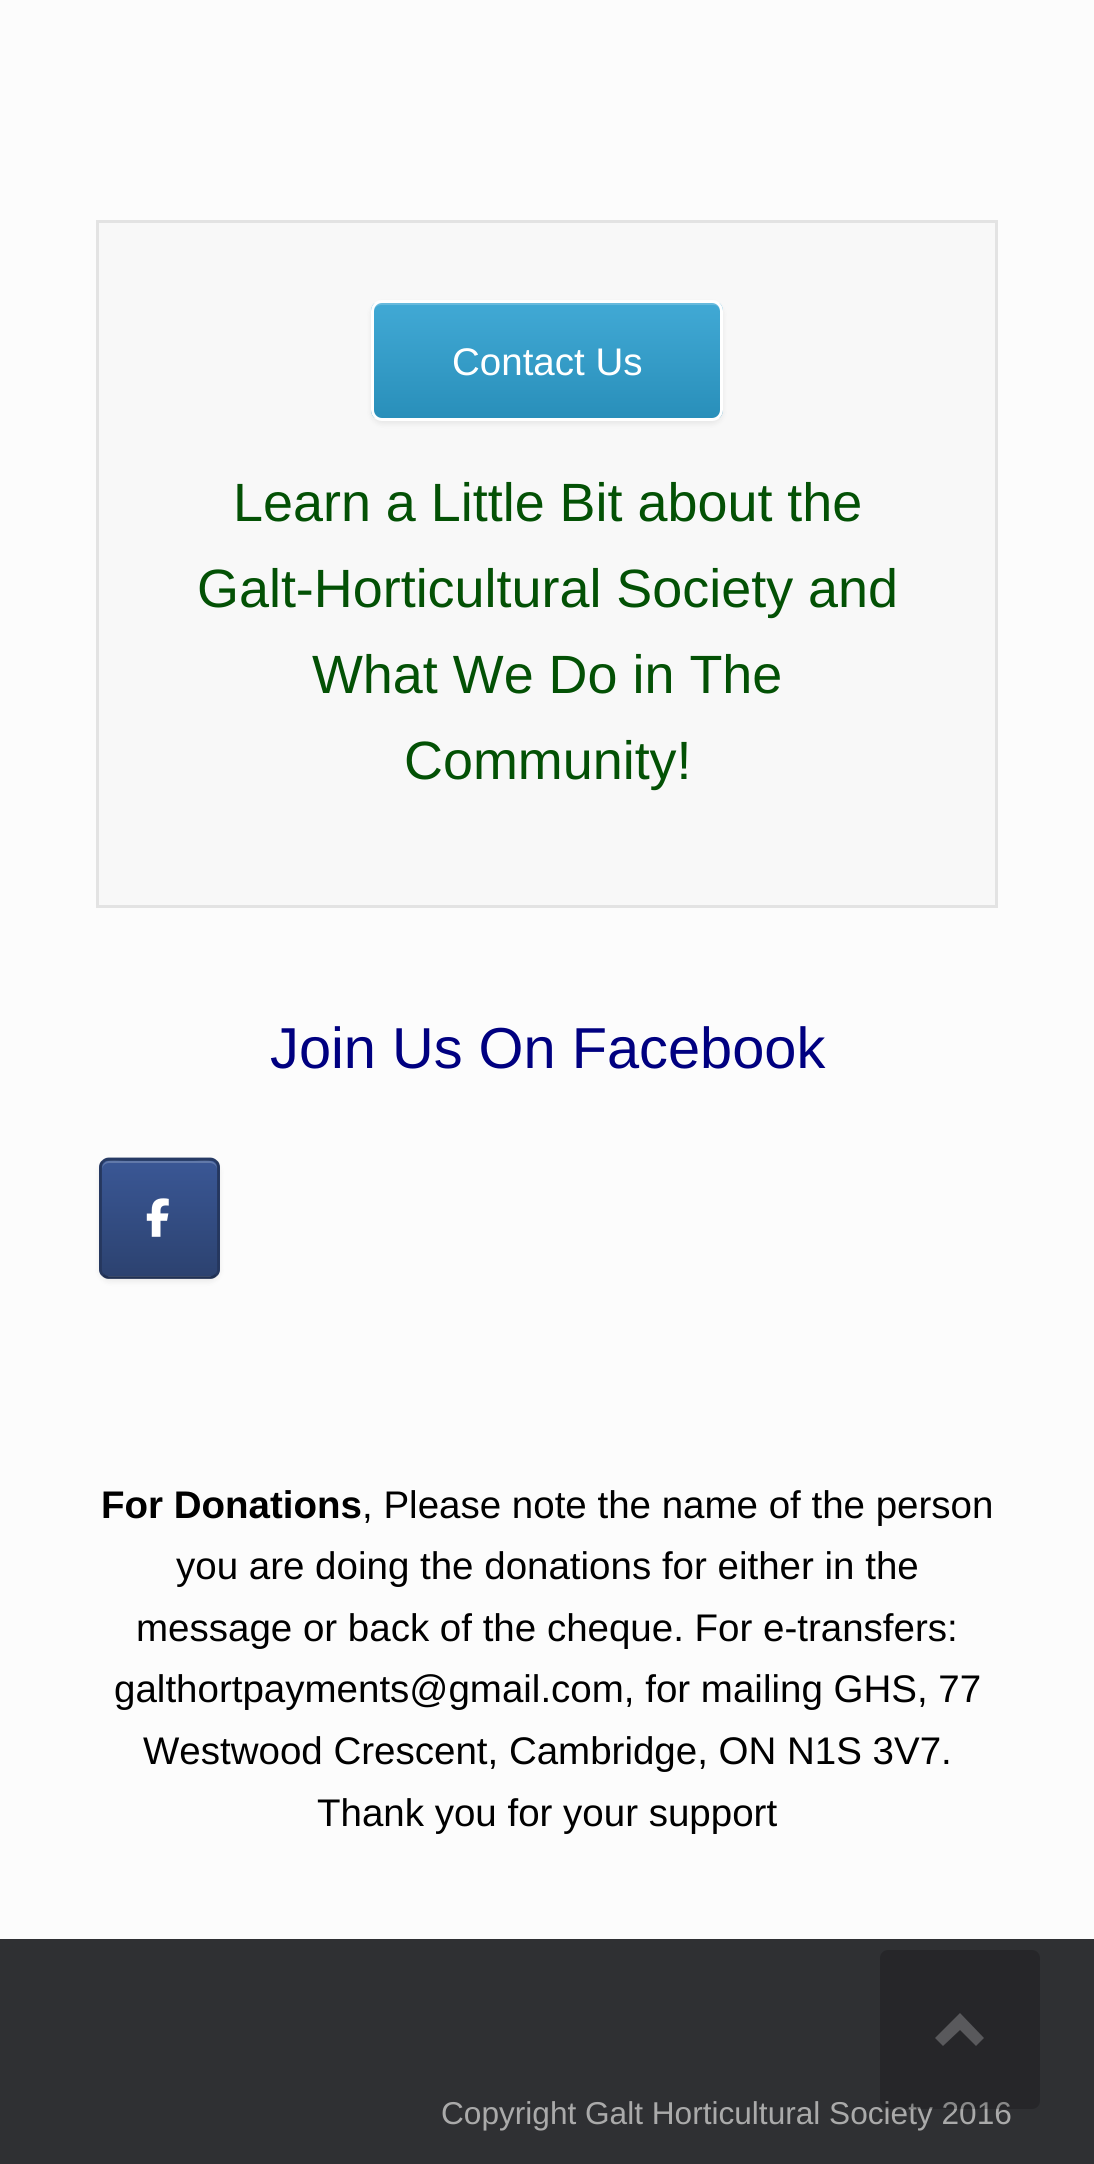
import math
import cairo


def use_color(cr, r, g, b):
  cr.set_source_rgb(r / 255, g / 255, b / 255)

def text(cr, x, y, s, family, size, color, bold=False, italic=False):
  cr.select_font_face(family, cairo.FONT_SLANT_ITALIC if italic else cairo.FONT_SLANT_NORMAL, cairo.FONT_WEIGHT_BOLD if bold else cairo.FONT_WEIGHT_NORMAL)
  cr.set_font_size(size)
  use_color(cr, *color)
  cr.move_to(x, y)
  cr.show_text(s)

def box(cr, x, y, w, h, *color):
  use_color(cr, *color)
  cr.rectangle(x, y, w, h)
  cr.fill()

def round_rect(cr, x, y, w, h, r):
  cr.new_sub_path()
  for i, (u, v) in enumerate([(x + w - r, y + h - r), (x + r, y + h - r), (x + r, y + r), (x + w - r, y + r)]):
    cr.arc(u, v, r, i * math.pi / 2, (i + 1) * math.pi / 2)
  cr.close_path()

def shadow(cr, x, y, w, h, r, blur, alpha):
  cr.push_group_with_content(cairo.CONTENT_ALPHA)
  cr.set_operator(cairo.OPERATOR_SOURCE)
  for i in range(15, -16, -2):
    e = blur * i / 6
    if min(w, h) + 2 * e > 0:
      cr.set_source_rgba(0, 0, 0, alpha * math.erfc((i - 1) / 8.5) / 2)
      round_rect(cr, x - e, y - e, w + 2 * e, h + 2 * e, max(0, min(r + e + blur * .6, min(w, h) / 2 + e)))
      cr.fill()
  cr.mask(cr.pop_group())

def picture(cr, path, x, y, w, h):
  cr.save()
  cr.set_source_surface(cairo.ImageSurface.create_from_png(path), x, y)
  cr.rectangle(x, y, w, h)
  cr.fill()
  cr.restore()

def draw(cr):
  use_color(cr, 47, 48, 51)
  cr.paint()
  box(cr, 0, 0, 1094, 1939, 252, 252, 252)
  use_color(cr, 248, 248, 248)
  cr.rectangle(97.5, 221.5, 899, 685)
  cr.fill_preserve()
  use_color(cr, 227, 227, 227)
  cr.set_line_width(3)
  cr.stroke()
  use_color(cr, 0, 0, 0)
  shadow(cr, 371, 303, 352, 121, 11, 3, 0.07)
  cr.save()
  round_rect(cr, 371, 300, 352, 121, 11)
  cr.clip()
  gradient = cairo.LinearGradient(374, 418, 374, 303)
  gradient.add_color_stop_rgba(0, 0.161, 0.561, 0.729, 1)
  gradient.add_color_stop_rgba(1, 0.255, 0.663, 0.835, 1)
  cr.set_source(gradient)
  cr.rectangle(371, 303, 352, 115)
  cr.fill()
  cr.restore()
  cr.set_source_rgba(1, 1, 1, 0.2)
  cr.new_path()
  cr.move_to(381, 305)
  cr.line_to(714, 305)
  cr.curve_to(724, 305, 720, 328, 720, 329)
  cr.line_to(720, 415)
  cr.curve_to(721, 414, 721, 412, 721, 411)
  cr.line_to(721, 310)
  cr.curve_to(721, 306, 718, 303, 714, 303)
  cr.line_to(381, 303)
  cr.curve_to(377, 303, 374, 306, 374, 310)
  cr.line_to(374, 312)
  cr.curve_to(374, 308, 377, 305, 381, 305)
  cr.close_path()
  cr.fill()
  round_rect(cr, 372.5, 301.5, 349, 118, 9.5)
  use_color(cr, 255, 255, 255)
  cr.stroke()
  use_color(cr, 0, 0, 0)
  shadow(cr, 99, 1161, 121, 121, 11, 3, 0.07)
  cr.save()
  round_rect(cr, 99, 1158, 121, 121, 11)
  cr.clip()
  gradient = cairo.LinearGradient(102, 1161, 102, 1045)
  gradient.add_color_stop_rgba(0, 0.173, 0.259, 0.439, 1)
  gradient.add_color_stop_rgba(1, 0.227, 0.341, 0.584, 1)
  cr.set_source(gradient)
  cr.rectangle(99, 1158, 121, 3)
  cr.fill()
  gradient = cairo.LinearGradient(102, 1276, 102, 1161)
  gradient.add_color_stop_rgba(0, 0.173, 0.259, 0.439, 1)
  gradient.add_color_stop_rgba(1, 0.227, 0.341, 0.584, 1)
  cr.set_source(gradient)
  cr.rectangle(99, 1161, 121, 115)
  cr.fill()
  cr.restore()
  cr.set_source_rgba(1, 1, 1, 0.2)
  cr.new_path()
  cr.move_to(109, 1163)
  cr.line_to(210, 1163)
  cr.curve_to(214, 1163, 217, 1166, 217, 1170)
  cr.curve_to(217, 1157, 203, 1161, 193, 1161)
  cr.line_to(126, 1161)
  cr.curve_to(116, 1161, 102, 1157, 102, 1170)
  cr.curve_to(102, 1166, 105, 1163, 109, 1163)
  cr.close_path()
  cr.fill()
  cr.new_path()
  cr.move_to(103, 1161.5)
  cr.curve_to(104.5, 1160, 106.5, 1159, 108.5, 1159)
  cr.line_to(210.5, 1159)
  cr.curve_to(212.5, 1159, 214.5, 1160, 216, 1161.5)
  use_color(cr, 39, 59, 101)
  cr.set_line_width(2.8)
  cr.stroke()
  cr.new_path()
  cr.move_to(216, 1161.5)
  cr.curve_to(218, 1163, 218.5, 1165, 218.5, 1167.5)
  cr.line_to(218.5, 1269)
  cr.curve_to(218.5, 1271.5, 218, 1273.5, 216, 1275)
  use_color(cr, 37, 55, 94)
  cr.stroke()
  cr.new_path()
  cr.move_to(216, 1275)
  cr.curve_to(214.5, 1276.5, 212.5, 1277.5, 210.5, 1277.5)
  cr.line_to(108.5, 1277.5)
  cr.curve_to(106.5, 1277.5, 104.5, 1276.5, 103, 1275)
  use_color(cr, 32, 48, 83)
  cr.stroke()
  cr.new_path()
  cr.move_to(103, 1275)
  cr.curve_to(101, 1273.5, 100.5, 1271.5, 100.5, 1269)
  cr.line_to(100.5, 1167.5)
  cr.curve_to(100.5, 1165, 101, 1163, 103, 1161.5)
  use_color(cr, 37, 55, 94)
  cr.stroke()
  picture(cr, "img_01.png", 146, 1198, 23, 39)
  text(cr, 452, 375, "Contact Us", "Liberation Sans", 38.5, (255, 255, 255))
  text(cr, 233, 521, "Learn a Little Bit about the", "Liberation Sans", 53.9, (3, 81, 5))
  text(cr, 197, 607, "Galt-Horticultural Society and", "Liberation Sans", 53.9, (3, 81, 5))
  text(cr, 312, 693, "What We Do in The", "Liberation Sans", 53.9, (3, 81, 5))
  text(cr, 404, 779, "Community!", "Liberation Sans", 53.9, (3, 81, 5))
  text(cr, 270, 1068, "Join Us On Facebook", "Liberation Sans", 57.75, (0, 0, 128))
  text(cr, 101, 1518, "For Donations", "Liberation Sans", 38.5, (0, 0, 0), bold=True)
  text(cr, 362, 1518, ", Please note the name of the person", "Liberation Sans", 38.5, (0, 0, 0))
  text(cr, 176, 1579, "you are doing the donations for either in the", "Liberation Sans", 38.5, (0, 0, 0))
  text(cr, 136, 1641, "message or back of the cheque. For e-transfers:", "Liberation Sans", 38.5, (0, 0, 0))
  text(cr, 114, 1702, "galthortpayments@gmail.com, for mailing GHS, 77", "Liberation Sans", 38.5, (0, 0, 0))
  text(cr, 143, 1764, "Westwood Crescent, Cambridge, ON N1S 3V7.", "Liberation Sans", 38.5, (0, 0, 0))
  text(cr, 317, 1826, "Thank you for your support", "Liberation Sans", 38.5, (0, 0, 0))
  text(cr, 441, 2124, "Copyright Galt Horticultural Society 2016", "Liberation Sans", 31.6, (170, 170, 170))
  cr.set_source_rgba(0, 0, 0, 0.2)
  round_rect(cr, 880, 1950, 160, 159, 8)
  cr.fill()
  use_color(cr, 89, 89, 92)
  cr.new_path()
  cr.move_to(984, 2038)
  cr.line_to(960, 2013)
  cr.line_to(935, 2038)
  cr.line_to(943, 2046)
  cr.line_to(960, 2030)
  cr.line_to(976, 2046)
  cr.close_path()
  cr.fill()


surface = cairo.ImageSurface(cairo.FORMAT_RGB24, 1094, 2164)
cr = cairo.Context(surface)
options = cairo.FontOptions()
options.set_hint_metrics(cairo.HINT_METRICS_OFF)
options.set_hint_style(cairo.HINT_STYLE_NONE)
cr.set_font_options(options)
cr.set_miter_limit(4)
draw(cr)
surface.write_to_png("out.png")
